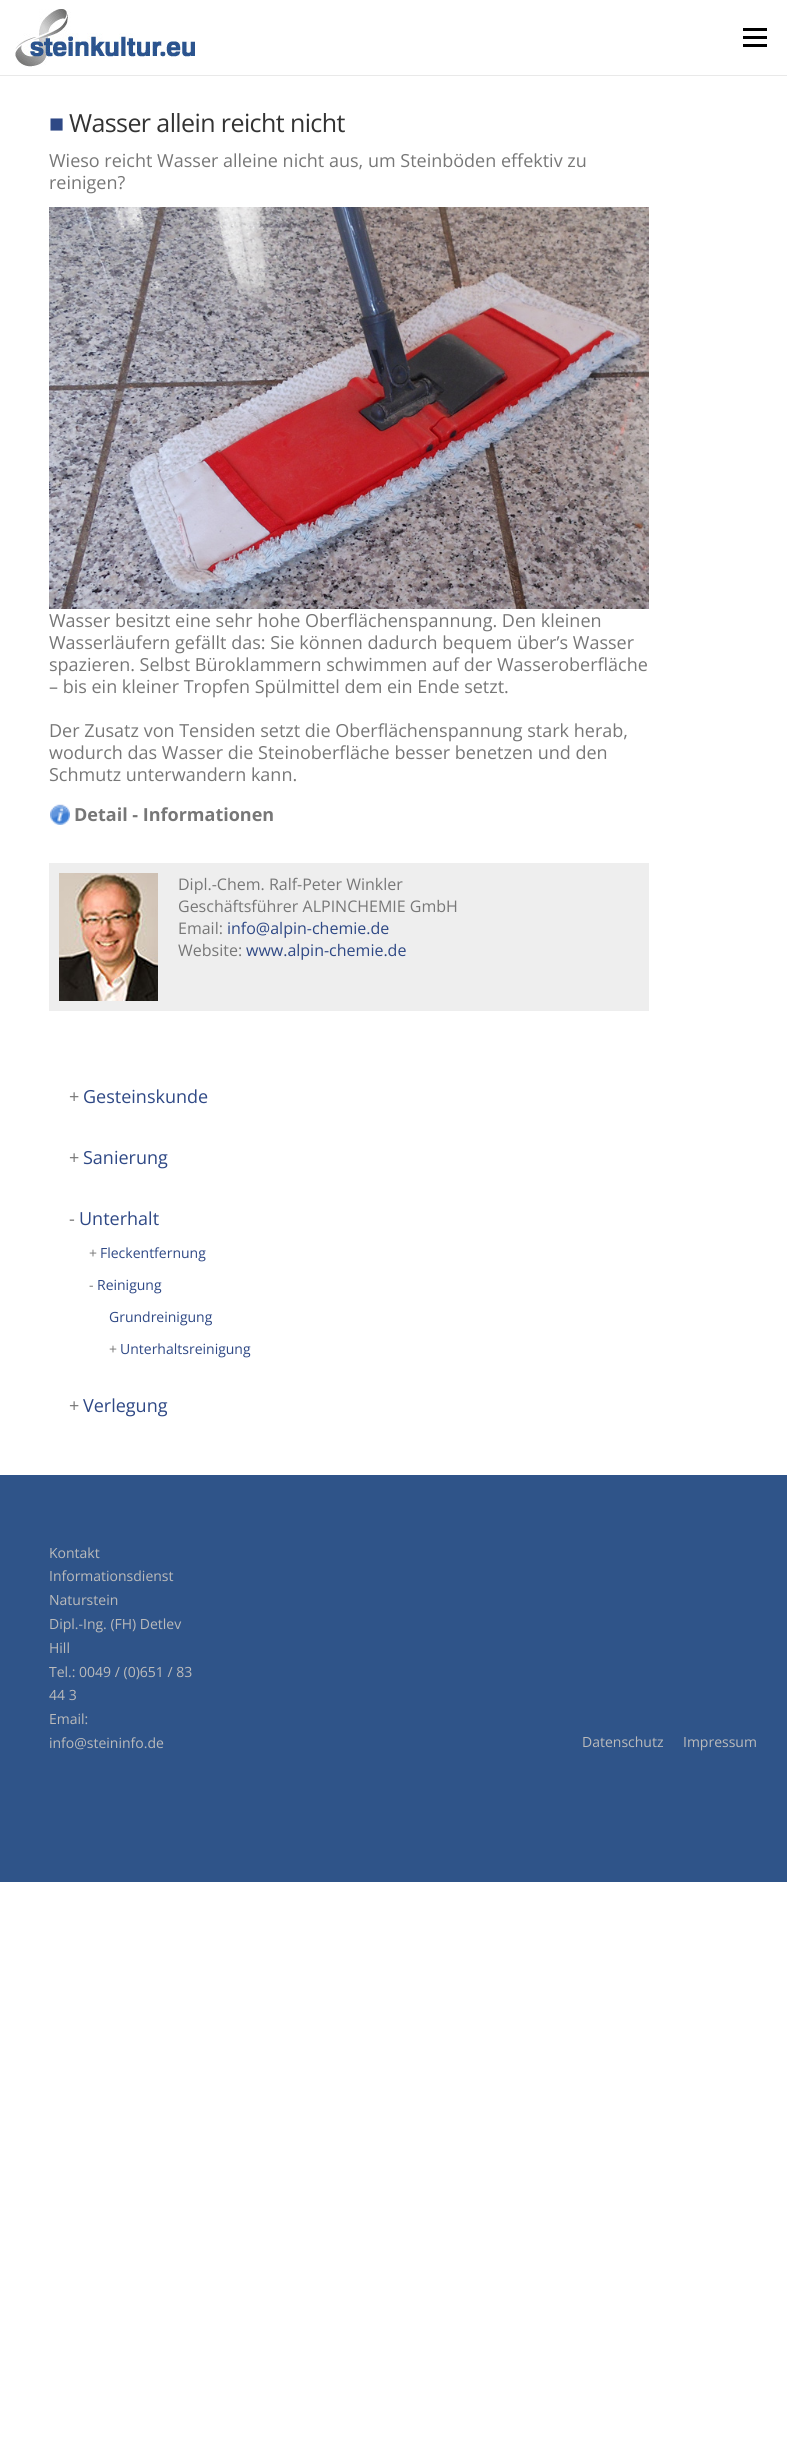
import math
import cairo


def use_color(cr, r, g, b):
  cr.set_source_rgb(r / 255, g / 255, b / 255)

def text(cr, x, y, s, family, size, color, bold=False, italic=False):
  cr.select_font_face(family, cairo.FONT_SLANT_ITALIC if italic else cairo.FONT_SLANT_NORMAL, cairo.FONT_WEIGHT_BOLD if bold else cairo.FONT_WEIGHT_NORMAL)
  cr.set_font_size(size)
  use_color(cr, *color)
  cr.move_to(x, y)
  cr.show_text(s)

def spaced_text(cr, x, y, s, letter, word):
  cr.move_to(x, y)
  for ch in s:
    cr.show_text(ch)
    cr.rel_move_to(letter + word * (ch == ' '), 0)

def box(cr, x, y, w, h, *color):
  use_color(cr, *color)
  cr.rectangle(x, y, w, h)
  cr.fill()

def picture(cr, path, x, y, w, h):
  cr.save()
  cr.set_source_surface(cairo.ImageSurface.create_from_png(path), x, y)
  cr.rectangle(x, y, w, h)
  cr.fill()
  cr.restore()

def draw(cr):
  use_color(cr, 255, 255, 255)
  cr.paint()
  picture(cr, "img_01.png", 15, 9, 180, 58)
  box(cr, 743, 36, 24, 3, 0, 0, 0)
  box(cr, 743, 28, 24, 3, 0, 0, 0)
  box(cr, 743, 44, 24, 3, 0, 0, 0)
  box(cr, 0, 75, 787, 1, 233, 233, 233)
  picture(cr, "img_02.png", 49, 207, 600, 402)
  picture(cr, "img_03.png", 50, 804, 20, 21)
  box(cr, 49, 863, 600, 148, 238, 238, 238)
  picture(cr, "img_04.png", 59, 873, 99, 128)
  box(cr, 0, 1475, 787, 407, 47, 84, 137)
  cr.select_font_face("Liberation Sans")
  cr.set_font_size(25)
  use_color(cr, 46, 72, 133)
  spaced_text(cr, 49, 132, "■", -0.6, 0)
  cr.select_font_face("Open Sans")
  use_color(cr, 51, 51, 51)
  spaced_text(cr, 69, 132, "Wasser allein reicht nicht", -0.6, 0)
  text(cr, 49, 167, "Wieso reicht Wasser alleine nicht aus, um Steinböden effektiv zu", "Open Sans", 18, (119, 119, 119))
  text(cr, 49, 189, "reinigen?", "Open Sans", 18, (119, 119, 119))
  text(cr, 49, 627, "Wasser besitzt eine sehr hohe Oberflächenspannung. Den kleinen", "Open Sans", 18, (119, 119, 119))
  text(cr, 49, 649, "Wasserläufern gefällt das: Sie können dadurch bequem über’s Wasser", "Open Sans", 18, (119, 119, 119))
  text(cr, 49, 671, "spazieren. Selbst Büroklammern schwimmen auf der Wasseroberfläche", "Open Sans", 18, (119, 119, 119))
  text(cr, 49, 693, "– bis ein kleiner Tropfen Spülmittel dem ein Ende setzt.", "Open Sans", 18, (119, 119, 119))
  text(cr, 49, 737, "Der Zusatz von Tensiden setzt die Oberflächenspannung stark herab,", "Open Sans", 18, (119, 119, 119))
  text(cr, 49, 759, "wodurch das Wasser die Steinoberfläche besser benetzen und den", "Open Sans", 18, (119, 119, 119))
  text(cr, 49, 781, "Schmutz unterwandern kann.", "Open Sans", 18, (119, 119, 119))
  text(cr, 74, 821, "Detail - Informationen", "Open Sans", 18, (119, 119, 119), bold=True)
  text(cr, 178, 890, "Dipl.-Chem. Ralf-Peter Winkler", "Open Sans", 16, (119, 119, 119))
  text(cr, 178, 912, "Geschäftsführer ALPINCHEMIE GmbH", "Open Sans", 16, (119, 119, 119))
  text(cr, 178, 934, "Email:", "Open Sans", 16, (119, 119, 119))
  text(cr, 227, 934, "info@alpin-chemie.de", "Open Sans", 16, (46, 72, 133))
  text(cr, 178, 956, "Website:", "Open Sans", 16, (119, 119, 119))
  text(cr, 246, 956, "www.alpin-chemie.de", "Open Sans", 16, (46, 72, 133))
  text(cr, 69, 1103, "+", "Open Sans", 18, (119, 119, 119))
  text(cr, 83, 1103, "Gesteinskunde", "Open Sans", 18, (46, 72, 133))
  text(cr, 69, 1164, "+", "Open Sans", 18, (119, 119, 119))
  text(cr, 83, 1164, "Sanierung", "Open Sans", 18, (46, 72, 133))
  text(cr, 69, 1225, "-", "Open Sans", 18, (119, 119, 119))
  text(cr, 79, 1225, "Unterhalt", "Open Sans", 18, (46, 72, 133))
  text(cr, 89, 1258, "+", "Open Sans", 14, (119, 119, 119))
  text(cr, 100, 1258, "Fleckentfernung", "Open Sans", 14, (46, 72, 133))
  text(cr, 89, 1290, "-", "Open Sans", 14, (119, 119, 119))
  text(cr, 97, 1290, "Reinigung", "Open Sans", 14, (46, 72, 133))
  text(cr, 109, 1322, "Grundreinigung", "Open Sans", 14, (46, 72, 133))
  text(cr, 109, 1354, "+", "Open Sans", 14, (119, 119, 119))
  text(cr, 120, 1354, "Unterhaltsreinigung", "Open Sans", 14, (46, 72, 133))
  text(cr, 69, 1412, "+", "Open Sans", 18, (119, 119, 119))
  text(cr, 83, 1412, "Verlegung", "Open Sans", 18, (46, 72, 133))
  text(cr, 49, 1558, "Kontakt", "Open Sans", 14, (187, 187, 187))
  text(cr, 49, 1581, "Informationsdienst", "Open Sans", 14, (187, 187, 187))
  text(cr, 49, 1605, "Naturstein", "Open Sans", 14, (187, 187, 187))
  text(cr, 49, 1629, "Dipl.-Ing. (FH) Detlev", "Open Sans", 14, (187, 187, 187))
  text(cr, 49, 1653, "Hill", "Open Sans", 14, (187, 187, 187))
  text(cr, 49, 1677, "Tel.: 0049 / (0)651 / 83", "Open Sans", 14, (187, 187, 187))
  text(cr, 49, 1700, "44 3", "Open Sans", 14, (187, 187, 187))
  text(cr, 49, 1724, "Email:", "Open Sans", 14, (187, 187, 187))
  text(cr, 49, 1748, "info@steininfo.de", "Open Sans", 14, (187, 187, 187))
  text(cr, 582, 1747, "Datenschutz", "Open Sans", 14, (187, 187, 187))
  text(cr, 683, 1747, "Impressum", "Open Sans", 14, (187, 187, 187))


surface = cairo.ImageSurface(cairo.FORMAT_RGB24, 787, 2439)
cr = cairo.Context(surface)
options = cairo.FontOptions()
options.set_hint_metrics(cairo.HINT_METRICS_OFF)
options.set_hint_style(cairo.HINT_STYLE_NONE)
cr.set_font_options(options)
cr.set_miter_limit(4)
draw(cr)
surface.write_to_png("out.png")
